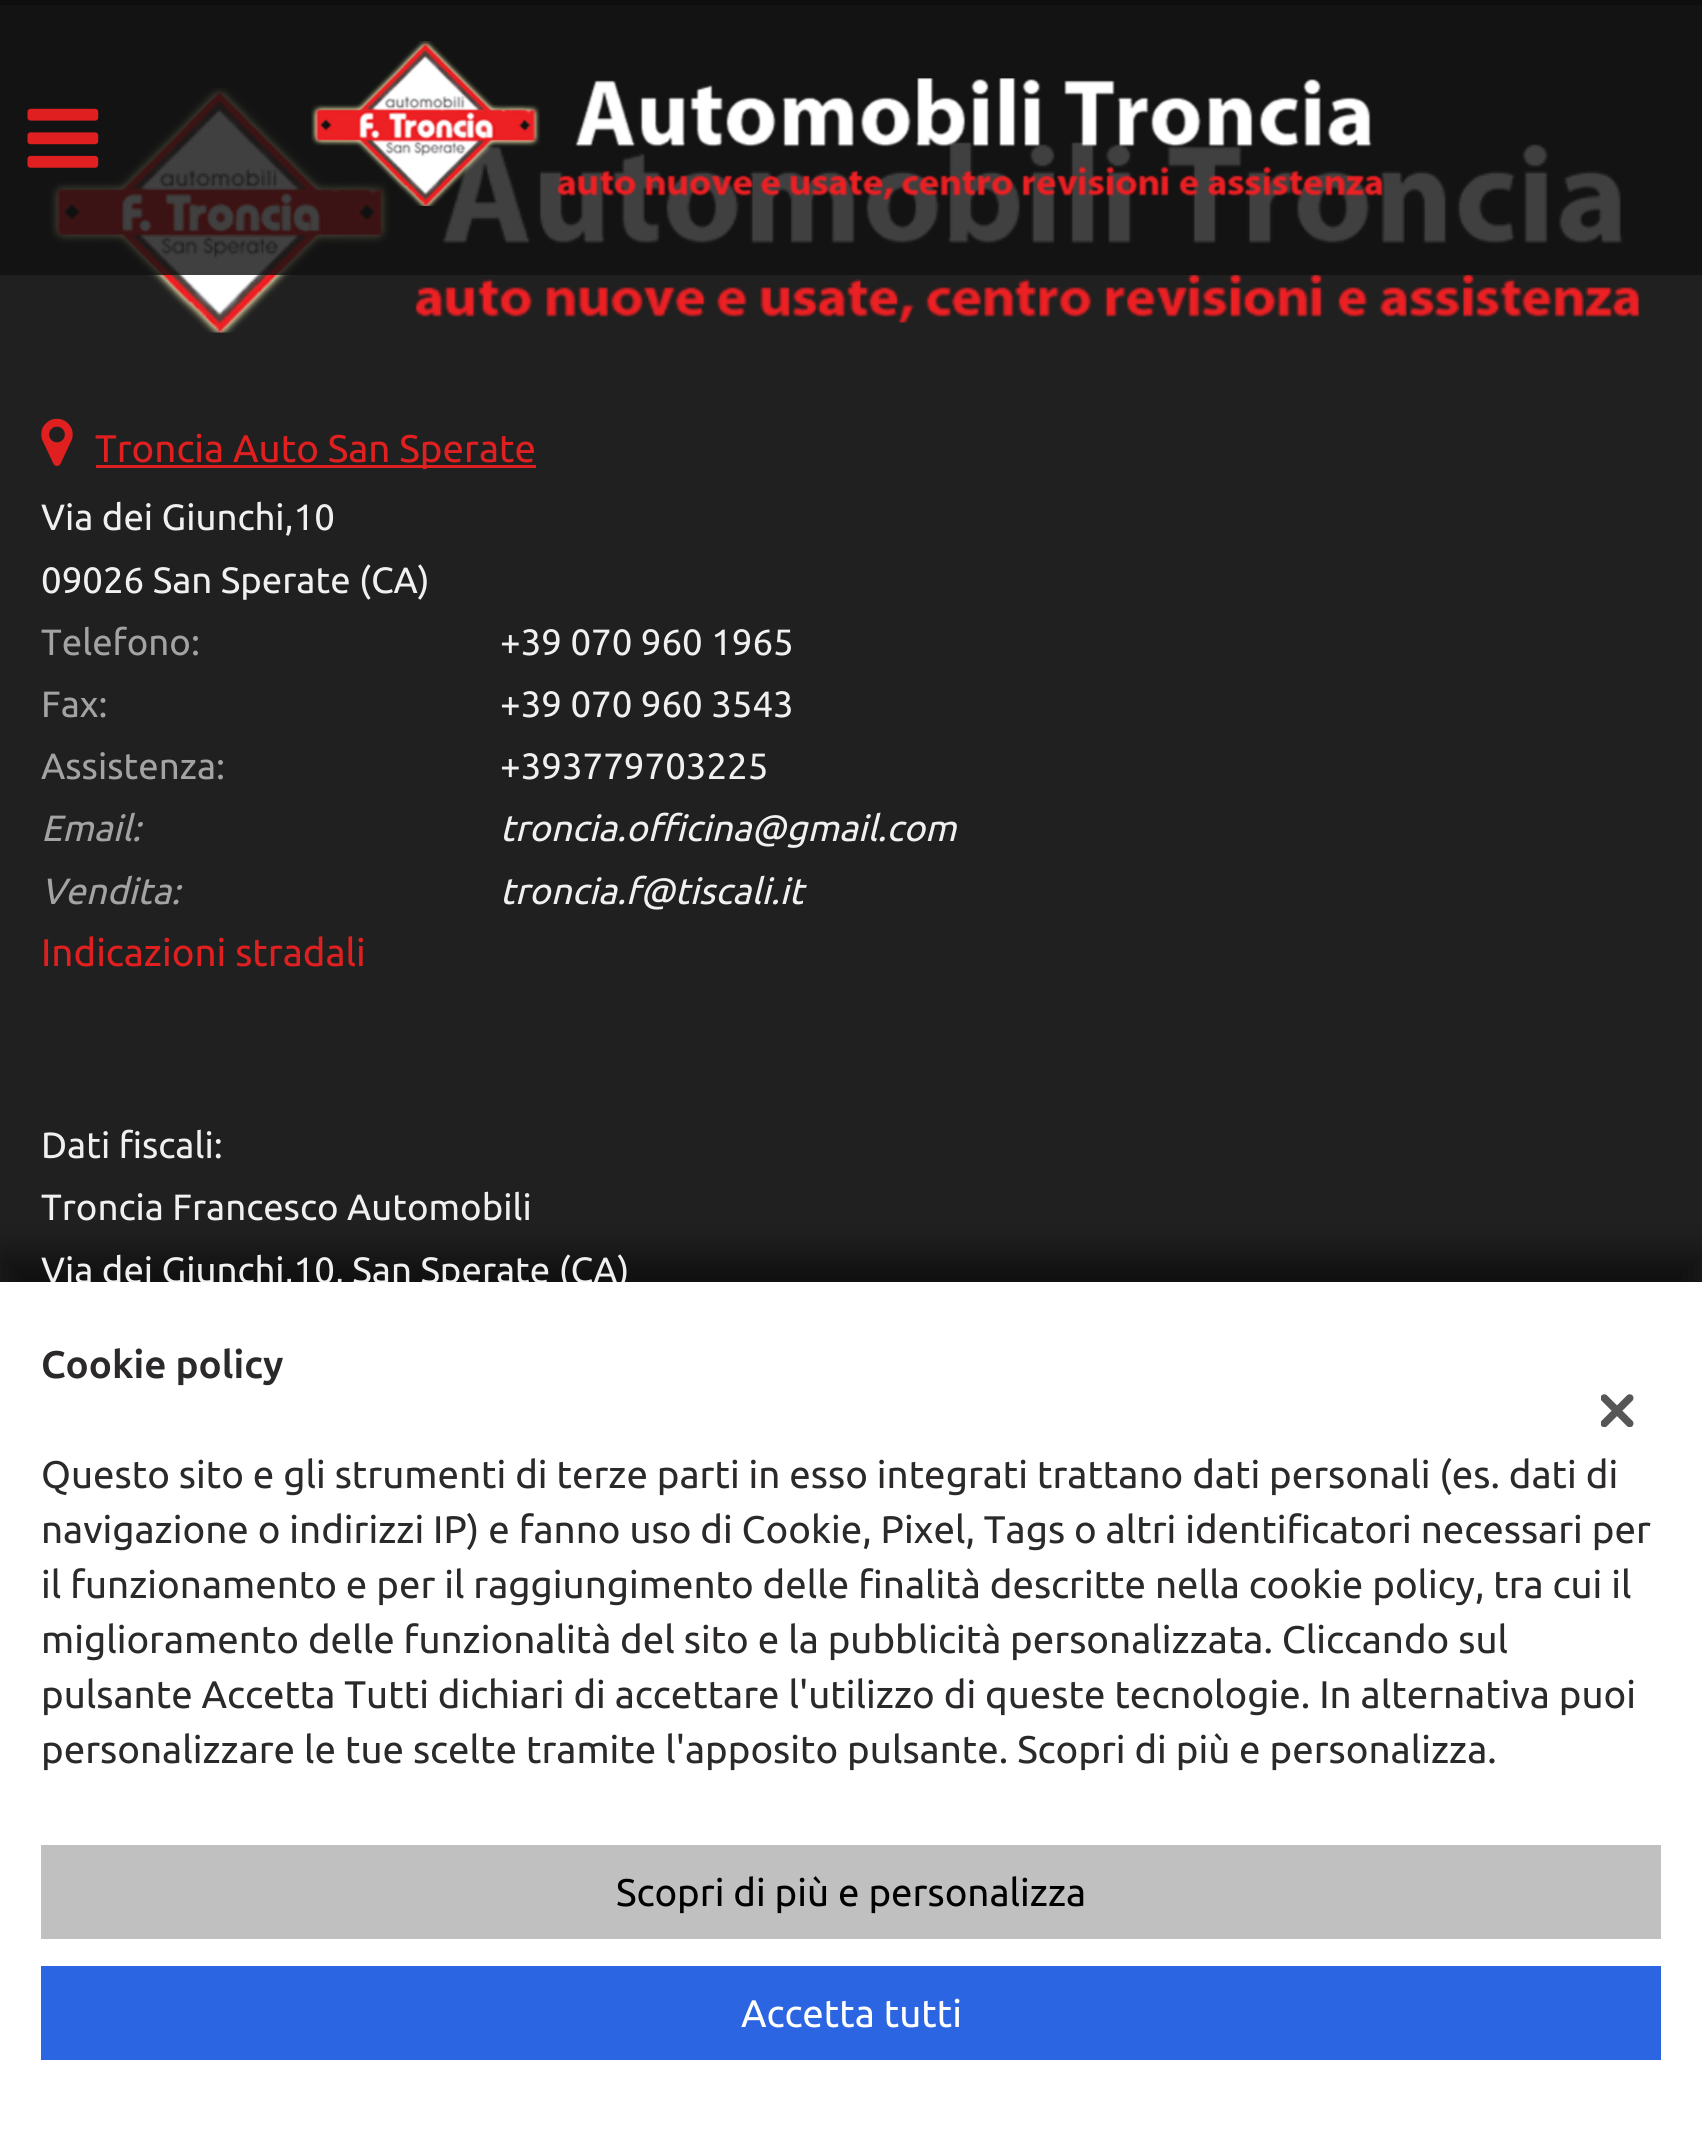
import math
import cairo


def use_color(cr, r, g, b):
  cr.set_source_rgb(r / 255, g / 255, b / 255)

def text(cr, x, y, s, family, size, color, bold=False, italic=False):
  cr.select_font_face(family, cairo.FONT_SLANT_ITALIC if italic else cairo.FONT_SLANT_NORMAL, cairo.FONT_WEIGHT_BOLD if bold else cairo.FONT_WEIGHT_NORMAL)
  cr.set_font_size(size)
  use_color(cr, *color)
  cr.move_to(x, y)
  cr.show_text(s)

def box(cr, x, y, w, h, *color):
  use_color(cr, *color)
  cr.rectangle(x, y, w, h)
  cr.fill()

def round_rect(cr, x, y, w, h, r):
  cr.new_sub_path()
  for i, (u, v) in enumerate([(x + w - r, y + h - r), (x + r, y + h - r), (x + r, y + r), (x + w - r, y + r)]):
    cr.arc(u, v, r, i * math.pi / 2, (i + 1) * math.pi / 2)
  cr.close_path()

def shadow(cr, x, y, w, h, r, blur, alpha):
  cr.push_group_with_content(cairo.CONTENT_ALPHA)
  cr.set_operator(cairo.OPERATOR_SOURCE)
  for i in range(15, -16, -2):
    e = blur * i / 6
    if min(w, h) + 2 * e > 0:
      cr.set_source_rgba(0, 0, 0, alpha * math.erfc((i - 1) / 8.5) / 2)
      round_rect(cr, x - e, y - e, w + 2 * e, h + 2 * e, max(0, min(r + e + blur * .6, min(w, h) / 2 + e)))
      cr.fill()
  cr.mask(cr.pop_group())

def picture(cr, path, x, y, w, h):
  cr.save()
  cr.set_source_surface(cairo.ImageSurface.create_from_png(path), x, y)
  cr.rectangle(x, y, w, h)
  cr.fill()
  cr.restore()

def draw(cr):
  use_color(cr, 32, 32, 32)
  cr.paint()
  box(cr, 0, 0, 1702, 5, 6, 6, 6)
  picture(cr, "img_03.png", 49, 87, 1592, 246)
  cr.set_source_rgba(0.067, 0.067, 0.067, 0.8)
  cr.rectangle(0, 0, 1702, 275)
  cr.fill()
  picture(cr, "img_01.png", 27, 108, 72, 60)
  picture(cr, "img_02.png", 311, 41, 1072, 165)
  picture(cr, "img_04.png", 41, 418, 32, 48)
  box(cr, 96, 465, 440, 3, 224, 32, 32)
  use_color(cr, 0, 0, 0)
  shadow(cr, 0, 1254, 1702, 861, 0, 16.5, 0.5)
  text(cr, 95, 462, "Troncia Auto San Sperate", "Ubuntu", 38.5, (224, 32, 32))
  text(cr, 41, 530, "Via dei Giunchi,10", "Ubuntu", 36.6, (240, 240, 240))
  text(cr, 41, 593, "09026 San Sperate (CA)", "Ubuntu", 36.6, (240, 240, 240))
  text(cr, 41, 655, "Telefono:", "Ubuntu", 36.6, (163, 163, 163))
  text(cr, 500, 655, "+39 070 960 1965", "Ubuntu", 36.6, (240, 240, 240))
  text(cr, 41, 717, "Fax:", "Ubuntu", 36.6, (163, 163, 163))
  text(cr, 500, 717, "+39 070 960 3543", "Ubuntu", 36.6, (240, 240, 240))
  text(cr, 41, 779, "Assistenza:", "Ubuntu", 36.6, (163, 163, 163))
  text(cr, 500, 779, "+393779703225", "Ubuntu", 36.6, (240, 240, 240))
  text(cr, 41, 841, "Email:", "Ubuntu", 36.6, (163, 163, 163), italic=True)
  text(cr, 500, 841, "troncia.officina@gmail.com", "Ubuntu", 36.6, (240, 240, 240), italic=True)
  text(cr, 41, 904, "Vendita:", "Ubuntu", 36.6, (163, 163, 163), italic=True)
  text(cr, 500, 904, "troncia.f@tiscali.it", "Ubuntu", 36.6, (240, 240, 240), italic=True)
  text(cr, 41, 966, "Indicazioni stradali", "Ubuntu", 38.5, (224, 32, 32))
  text(cr, 41, 1158, "Dati fiscali:", "Ubuntu", 36.6, (240, 240, 240))
  text(cr, 41, 1220, "Troncia Francesco Automobili", "Ubuntu", 36.6, (240, 240, 240))
  text(cr, 41, 1283, "Via dei Giunchi,10, San Sperate (CA)", "Ubuntu", 36.6, (240, 240, 240))
  box(cr, 0, 1282, 1702, 860, 255, 255, 255)
  text(cr, 41, 1378, "Cookie policy", "Ubuntu", 38.5, (43, 41, 41), bold=True)
  text(cr, 41, 1488, "Questo sito e gli strumenti di terze parti in esso integrati trattano dati personali (es. dati di", "Ubuntu", 38.5, (43, 41, 41))
  text(cr, 41, 1543, "navigazione o indirizzi IP) e fanno uso di Cookie, Pixel, Tags o altri identificatori necessari per", "Ubuntu", 38.5, (43, 41, 41))
  text(cr, 41, 1598, "il funzionamento e per il raggiungimento delle finalità descritte nella cookie policy, tra cui il", "Ubuntu", 38.5, (43, 41, 41))
  text(cr, 41, 1653, "miglioramento delle funzionalità del sito e la pubblicità personalizzata. Cliccando sul", "Ubuntu", 38.5, (43, 41, 41))
  text(cr, 41, 1708, "pulsante Accetta Tutti dichiari di accettare l'utilizzo di queste tecnologie. In alternativa puoi", "Ubuntu", 38.5, (43, 41, 41))
  text(cr, 41, 1763, "personalizzare le tue scelte tramite l'apposito pulsante. Scopri di più e personalizza.", "Ubuntu", 38.5, (43, 41, 41))
  box(cr, 41, 1845, 1620, 94, 192, 192, 192)
  text(cr, 616, 1906, "Scopri di più e personalizza", "Ubuntu", 38.5, (0, 0, 0))
  box(cr, 41, 1966, 1620, 94, 44, 101, 225)
  text(cr, 741, 2027, "Accetta tutti", "Ubuntu", 38.5, (255, 255, 255))
  picture(cr, "img_05.png", 1601, 1394, 33, 33)


surface = cairo.ImageSurface(cairo.FORMAT_RGB24, 1702, 2142)
cr = cairo.Context(surface)
options = cairo.FontOptions()
options.set_hint_metrics(cairo.HINT_METRICS_OFF)
options.set_hint_style(cairo.HINT_STYLE_NONE)
cr.set_font_options(options)
cr.set_miter_limit(4)
draw(cr)
surface.write_to_png("out.png")
